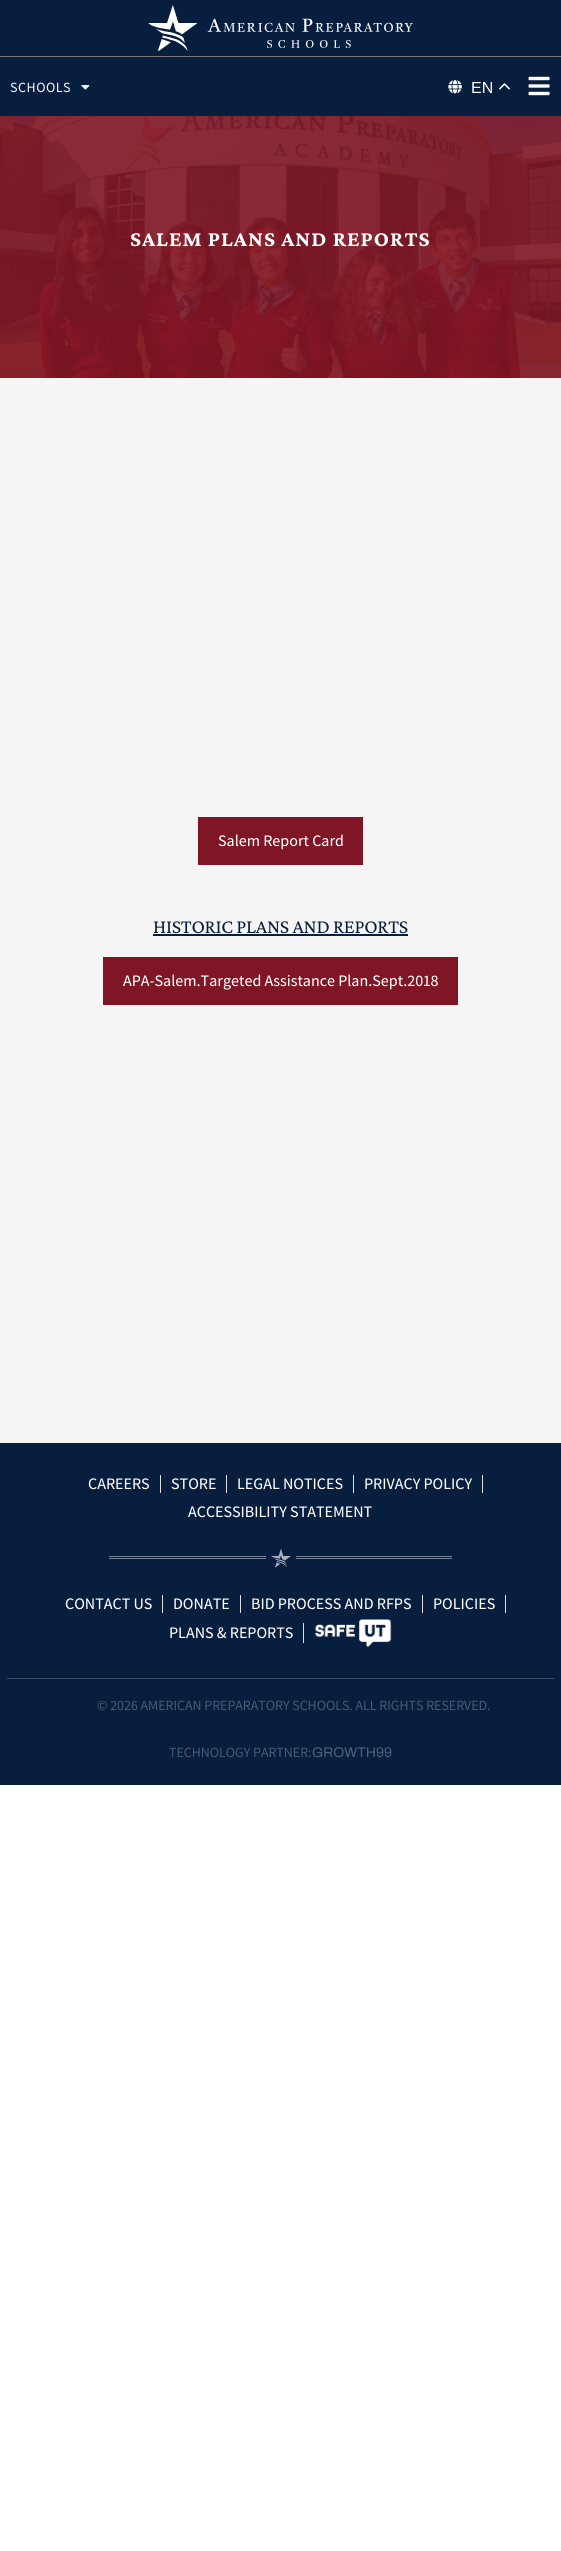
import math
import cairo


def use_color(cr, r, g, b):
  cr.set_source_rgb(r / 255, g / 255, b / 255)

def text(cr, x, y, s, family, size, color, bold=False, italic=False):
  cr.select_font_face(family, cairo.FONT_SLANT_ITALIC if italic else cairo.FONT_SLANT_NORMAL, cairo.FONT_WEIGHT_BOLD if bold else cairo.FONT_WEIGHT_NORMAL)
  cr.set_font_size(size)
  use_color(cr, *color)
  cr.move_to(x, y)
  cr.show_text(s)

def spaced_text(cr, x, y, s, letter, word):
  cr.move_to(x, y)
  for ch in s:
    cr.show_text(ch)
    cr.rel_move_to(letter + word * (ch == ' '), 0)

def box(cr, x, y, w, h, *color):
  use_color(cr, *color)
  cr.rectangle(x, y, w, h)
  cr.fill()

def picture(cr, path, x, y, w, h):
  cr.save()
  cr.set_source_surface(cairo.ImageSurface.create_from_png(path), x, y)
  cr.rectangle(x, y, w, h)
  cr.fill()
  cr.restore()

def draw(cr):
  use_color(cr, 255, 255, 255)
  cr.paint()
  box(cr, 0, 0, 561, 116, 8, 30, 63)
  picture(cr, "img_01.png", 148, 5, 265, 46)
  box(cr, 0, 56, 561, 1, 122, 122, 122)
  picture(cr, "img_02.png", 81, 85, 9, 5)
  picture(cr, "img_03.png", 448, 80, 14, 14)
  picture(cr, "img_04.png", 499, 83, 11, 7)
  picture(cr, "img_05.png", 528, 76, 22, 20)
  picture(cr, "img_06.png", 0, 116, 561, 262)
  box(cr, 0, 378, 561, 1065, 245, 245, 245)
  box(cr, 198, 817, 165, 48, 128, 22, 37)
  box(cr, 153, 934, 255, 2, 8, 30, 63)
  box(cr, 103, 957, 355, 48, 128, 22, 37)
  box(cr, 0, 1443, 561, 342, 8, 30, 63)
  box(cr, 160, 1475, 1, 18, 221, 221, 221)
  box(cr, 226, 1475, 1, 18, 221, 221, 221)
  box(cr, 353, 1475, 1, 18, 221, 221, 221)
  box(cr, 482, 1475, 1, 18, 221, 221, 221)
  box(cr, 109, 1556, 157, 1, 117, 129, 147)
  box(cr, 109, 1558, 157, 1, 117, 129, 147)
  picture(cr, "img_07.png", 271, 1549, 20, 19)
  box(cr, 296, 1556, 156, 1, 117, 129, 147)
  box(cr, 296, 1558, 156, 1, 117, 129, 147)
  box(cr, 162, 1595, 1, 18, 221, 221, 221)
  box(cr, 240, 1595, 1, 18, 221, 221, 221)
  box(cr, 422, 1595, 1, 18, 221, 221, 221)
  box(cr, 505, 1595, 1, 18, 221, 221, 221)
  box(cr, 303, 1623, 1, 20, 221, 221, 221)
  picture(cr, "img_08.png", 314, 1619, 78, 29)
  box(cr, 7, 1678, 547, 1, 60, 77, 103)
  cr.select_font_face("Assistant Medium")
  cr.set_font_size(14)
  use_color(cr, 240, 240, 240)
  spaced_text(cr, 10, 92, "SCHOOLS", 0.5, 0)
  text(cr, 471, 93, "EN", "Liberation Sans", 16, (255, 255, 255))
  cr.select_font_face("Crimson Pro", cairo.FONT_SLANT_NORMAL, cairo.FONT_WEIGHT_BOLD)
  cr.set_font_size(22)
  spaced_text(cr, 130, 246, "SALEM PLANS AND REPORTS", 1, 0)
  text(cr, 218, 846, "Salem Report Card", "Assistant Medium", 16, (255, 255, 255))
  cr.select_font_face("Crimson Pro")
  cr.set_font_size(20)
  use_color(cr, 8, 30, 63)
  spaced_text(cr, 153, 933, "HISTORIC PLANS AND REPORTS", -0.25, 0)
  text(cr, 123, 986, "APA-Salem.Targeted Assistance Plan.Sept.2018", "Assistant Medium", 16, (255, 255, 255))
  text(cr, 88, 1489, "CAREERS", "Assistant Medium", 16, (255, 255, 255))
  text(cr, 171, 1489, "STORE", "Assistant Medium", 16, (255, 255, 255))
  text(cr, 237, 1489, "LEGAL NOTICES", "Assistant Medium", 16, (255, 255, 255))
  text(cr, 364, 1489, "PRIVACY POLICY", "Assistant Medium", 16, (255, 255, 255))
  text(cr, 188, 1517, "ACCESSIBILITY STATEMENT", "Assistant Medium", 16, (255, 255, 255))
  text(cr, 65, 1609, "CONTACT US", "Assistant Medium", 16, (255, 255, 255))
  text(cr, 173, 1609, "DONATE", "Assistant Medium", 16, (255, 255, 255))
  text(cr, 251, 1609, "BID PROCESS AND RFPS", "Assistant Medium", 16, (255, 255, 255))
  text(cr, 433, 1609, "POLICIES", "Assistant Medium", 16, (255, 255, 255))
  text(cr, 169, 1638, "PLANS & REPORTS", "Assistant Medium", 16, (255, 255, 255))
  text(cr, 97, 1710, "© 2026 AMERICAN PREPARATORY SCHOOLS. ALL RIGHTS RESERVED.", "Assistant", 14, (80, 95, 119))
  text(cr, 169, 1757, "TECHNOLOGY PARTNER:", "Assistant", 14, (80, 95, 119))
  text(cr, 312, 1757, "GROWTH99", "Archivo", 14, (80, 95, 119))


surface = cairo.ImageSurface(cairo.FORMAT_RGB24, 561, 2551)
cr = cairo.Context(surface)
options = cairo.FontOptions()
options.set_hint_metrics(cairo.HINT_METRICS_OFF)
options.set_hint_style(cairo.HINT_STYLE_NONE)
cr.set_font_options(options)
cr.set_miter_limit(4)
draw(cr)
surface.write_to_png("out.png")
